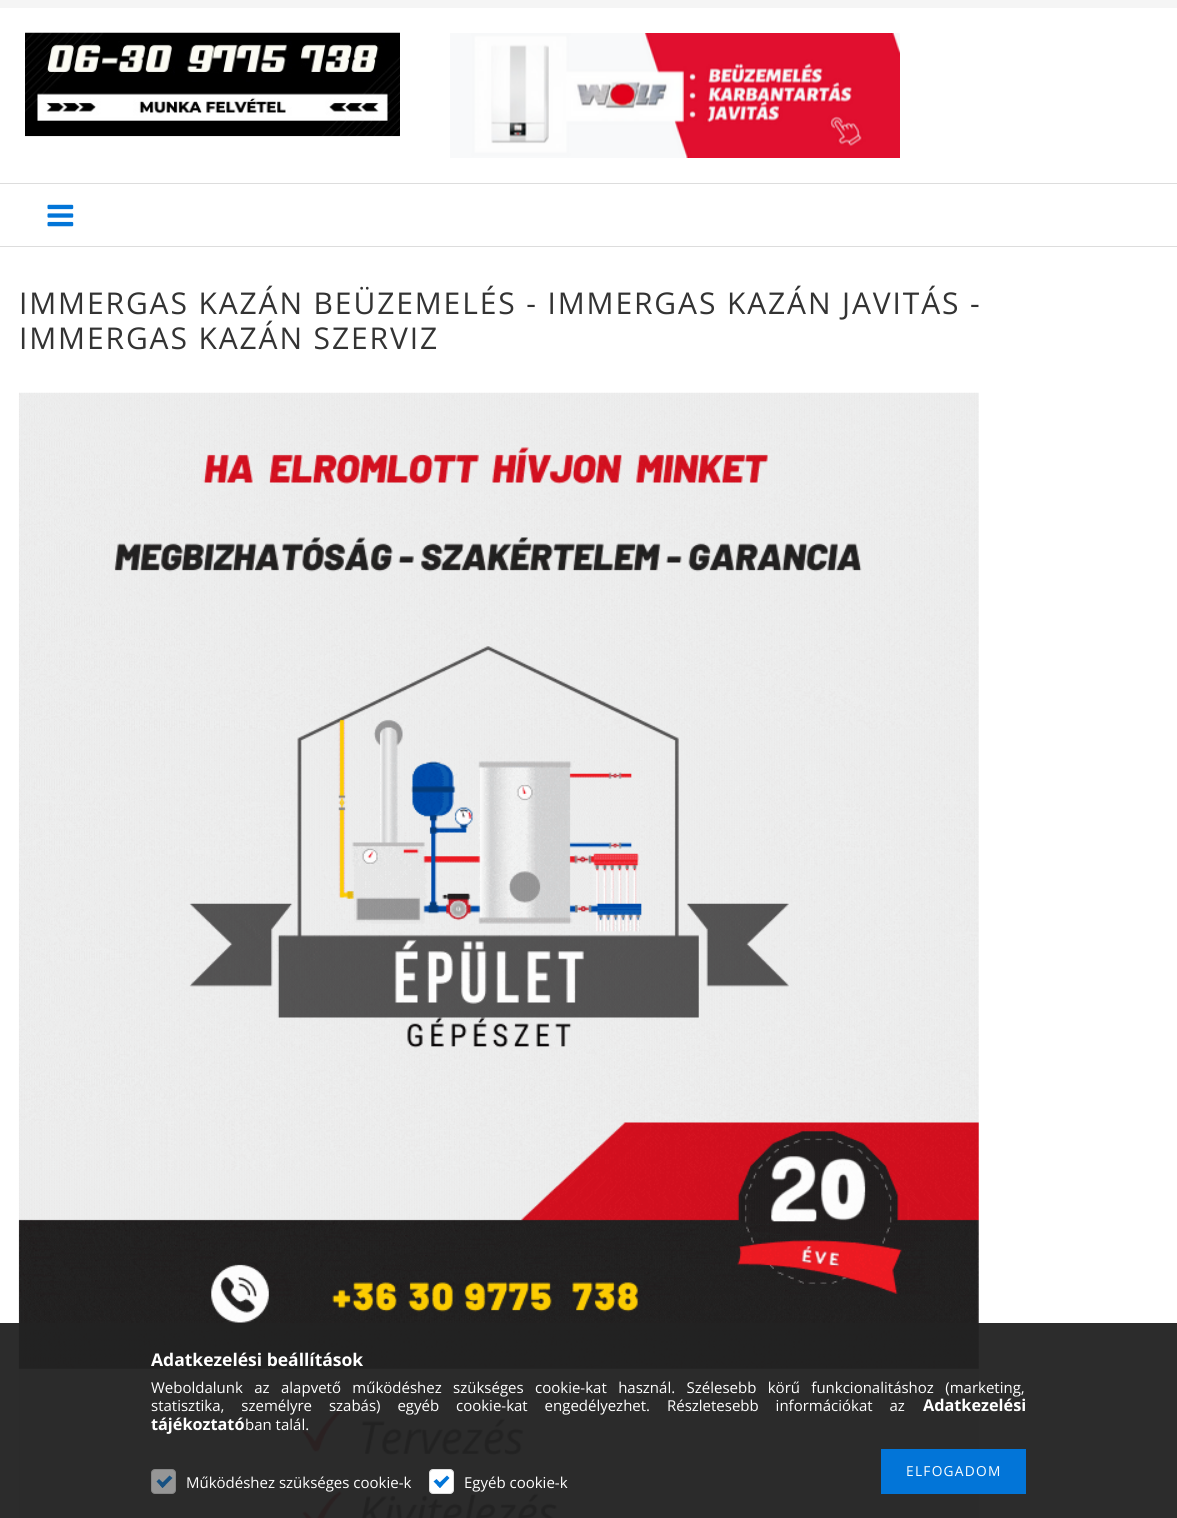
import math
import cairo


def use_color(cr, r, g, b):
  cr.set_source_rgb(r / 255, g / 255, b / 255)

def text(cr, x, y, s, family, size, color, bold=False, italic=False):
  cr.select_font_face(family, cairo.FONT_SLANT_ITALIC if italic else cairo.FONT_SLANT_NORMAL, cairo.FONT_WEIGHT_BOLD if bold else cairo.FONT_WEIGHT_NORMAL)
  cr.set_font_size(size)
  use_color(cr, *color)
  cr.move_to(x, y)
  cr.show_text(s)

def spaced_text(cr, x, y, s, letter, word):
  cr.move_to(x, y)
  for ch in s:
    cr.show_text(ch)
    cr.rel_move_to(letter + word * (ch == ' '), 0)

def box(cr, x, y, w, h, *color):
  use_color(cr, *color)
  cr.rectangle(x, y, w, h)
  cr.fill()

def round_rect(cr, x, y, w, h, r):
  cr.new_sub_path()
  for i, (u, v) in enumerate([(x + w - r, y + h - r), (x + r, y + h - r), (x + r, y + r), (x + w - r, y + r)]):
    cr.arc(u, v, r, i * math.pi / 2, (i + 1) * math.pi / 2)
  cr.close_path()

def picture(cr, path, x, y, w, h):
  cr.save()
  cr.set_source_surface(cairo.ImageSurface.create_from_png(path), x, y)
  cr.rectangle(x, y, w, h)
  cr.fill()
  cr.restore()

def draw(cr):
  use_color(cr, 255, 255, 255)
  cr.paint()
  box(cr, 0, 0, 1177, 8, 245, 245, 245)
  picture(cr, "img_01.png", 25, 32, 375, 105)
  picture(cr, "img_02.png", 450, 33, 450, 125)
  box(cr, 0, 183, 1177, 1, 221, 221, 221)
  box(cr, 0, 246, 1177, 1, 221, 221, 221)
  picture(cr, "img_03.png", 47, 204, 27, 23)
  picture(cr, "img_04.png", 18, 392, 961, 1126)
  cr.set_source_rgba(0.133, 0.133, 0.133, 0.95)
  cr.rectangle(0, 1323, 1177, 195)
  cr.fill()
  box(cr, 881, 1449, 145, 45, 2, 117, 216)
  use_color(cr, 150, 150, 150)
  round_rect(cr, 151.5, 1469.5, 24, 24, 3.5)
  cr.fill_preserve()
  use_color(cr, 133, 133, 133)
  cr.set_line_width(1)
  cr.stroke()
  use_color(cr, 23, 81, 130)
  cr.new_path()
  cr.move_to(160, 1485)
  cr.line_to(169.5, 1475.5)
  cr.line_to(172.5, 1478)
  cr.line_to(162.5, 1488)
  cr.close_path()
  cr.fill()
  cr.new_path()
  cr.move_to(156.5, 1481.5)
  cr.line_to(159, 1479)
  cr.line_to(165.5, 1485)
  cr.line_to(162.5, 1488)
  cr.close_path()
  cr.fill()
  use_color(cr, 255, 255, 255)
  round_rect(cr, 429.5, 1469.5, 24, 24, 3.5)
  cr.fill_preserve()
  use_color(cr, 221, 221, 221)
  cr.stroke()
  use_color(cr, 2, 117, 216)
  cr.new_path()
  cr.move_to(437, 1485)
  cr.line_to(447, 1475.5)
  cr.line_to(449.5, 1478)
  cr.line_to(440, 1488)
  cr.close_path()
  cr.fill()
  cr.new_path()
  cr.move_to(433.5, 1481.5)
  cr.line_to(436.5, 1479)
  cr.line_to(442.5, 1485)
  cr.line_to(440, 1488)
  cr.close_path()
  cr.fill()
  cr.select_font_face("Open Sans")
  cr.set_font_size(30)
  use_color(cr, 51, 51, 51)
  spaced_text(cr, 19, 314, "IMMERGAS KAZÁN BEÜZEMELÉS - IMMERGAS KAZÁN JAVITÁS -", 1.88, 0)
  spaced_text(cr, 19, 349, "IMMERGAS KAZÁN SZERVIZ", 1.88, 0)
  text(cr, 151, 1366, "Adatkezelési beállítások", "Open Sans", 17.5, (255, 255, 255), bold=True)
  cr.select_font_face("Open Sans")
  cr.set_font_size(15)
  spaced_text(cr, 151, 1393, "Weboldalunk az alapvető működéshez szükséges cookie-kat használ. Szélesebb körű funkcionalitáshoz (marketing,", 0, 7.5)
  spaced_text(cr, 151, 1411, "statisztika, személyre szabás) egyéb cookie-kat engedélyezhet. Részletesebb információkat az", 0, 13)
  text(cr, 923, 1411, "Adatkezelési", "Open Sans", 16.25, (255, 255, 255), bold=True)
  text(cr, 151, 1430, "tájékoztató", "Open Sans", 16.25, (255, 255, 255), bold=True)
  text(cr, 245, 1430, "ban talál.", "Open Sans", 15, (255, 255, 255))
  cr.set_font_size(13.75)
  spaced_text(cr, 906, 1476, "ELFOGADOM", 1.25, 0)
  text(cr, 186, 1488, "Működéshez szükséges cookie-k", "Open Sans", 15, (255, 255, 255))
  text(cr, 464, 1488, "Egyéb cookie-k", "Open Sans", 15, (255, 255, 255))


surface = cairo.ImageSurface(cairo.FORMAT_RGB24, 1177, 1518)
cr = cairo.Context(surface)
options = cairo.FontOptions()
options.set_hint_metrics(cairo.HINT_METRICS_OFF)
options.set_hint_style(cairo.HINT_STYLE_NONE)
cr.set_font_options(options)
cr.set_miter_limit(4)
draw(cr)
surface.write_to_png("out.png")
